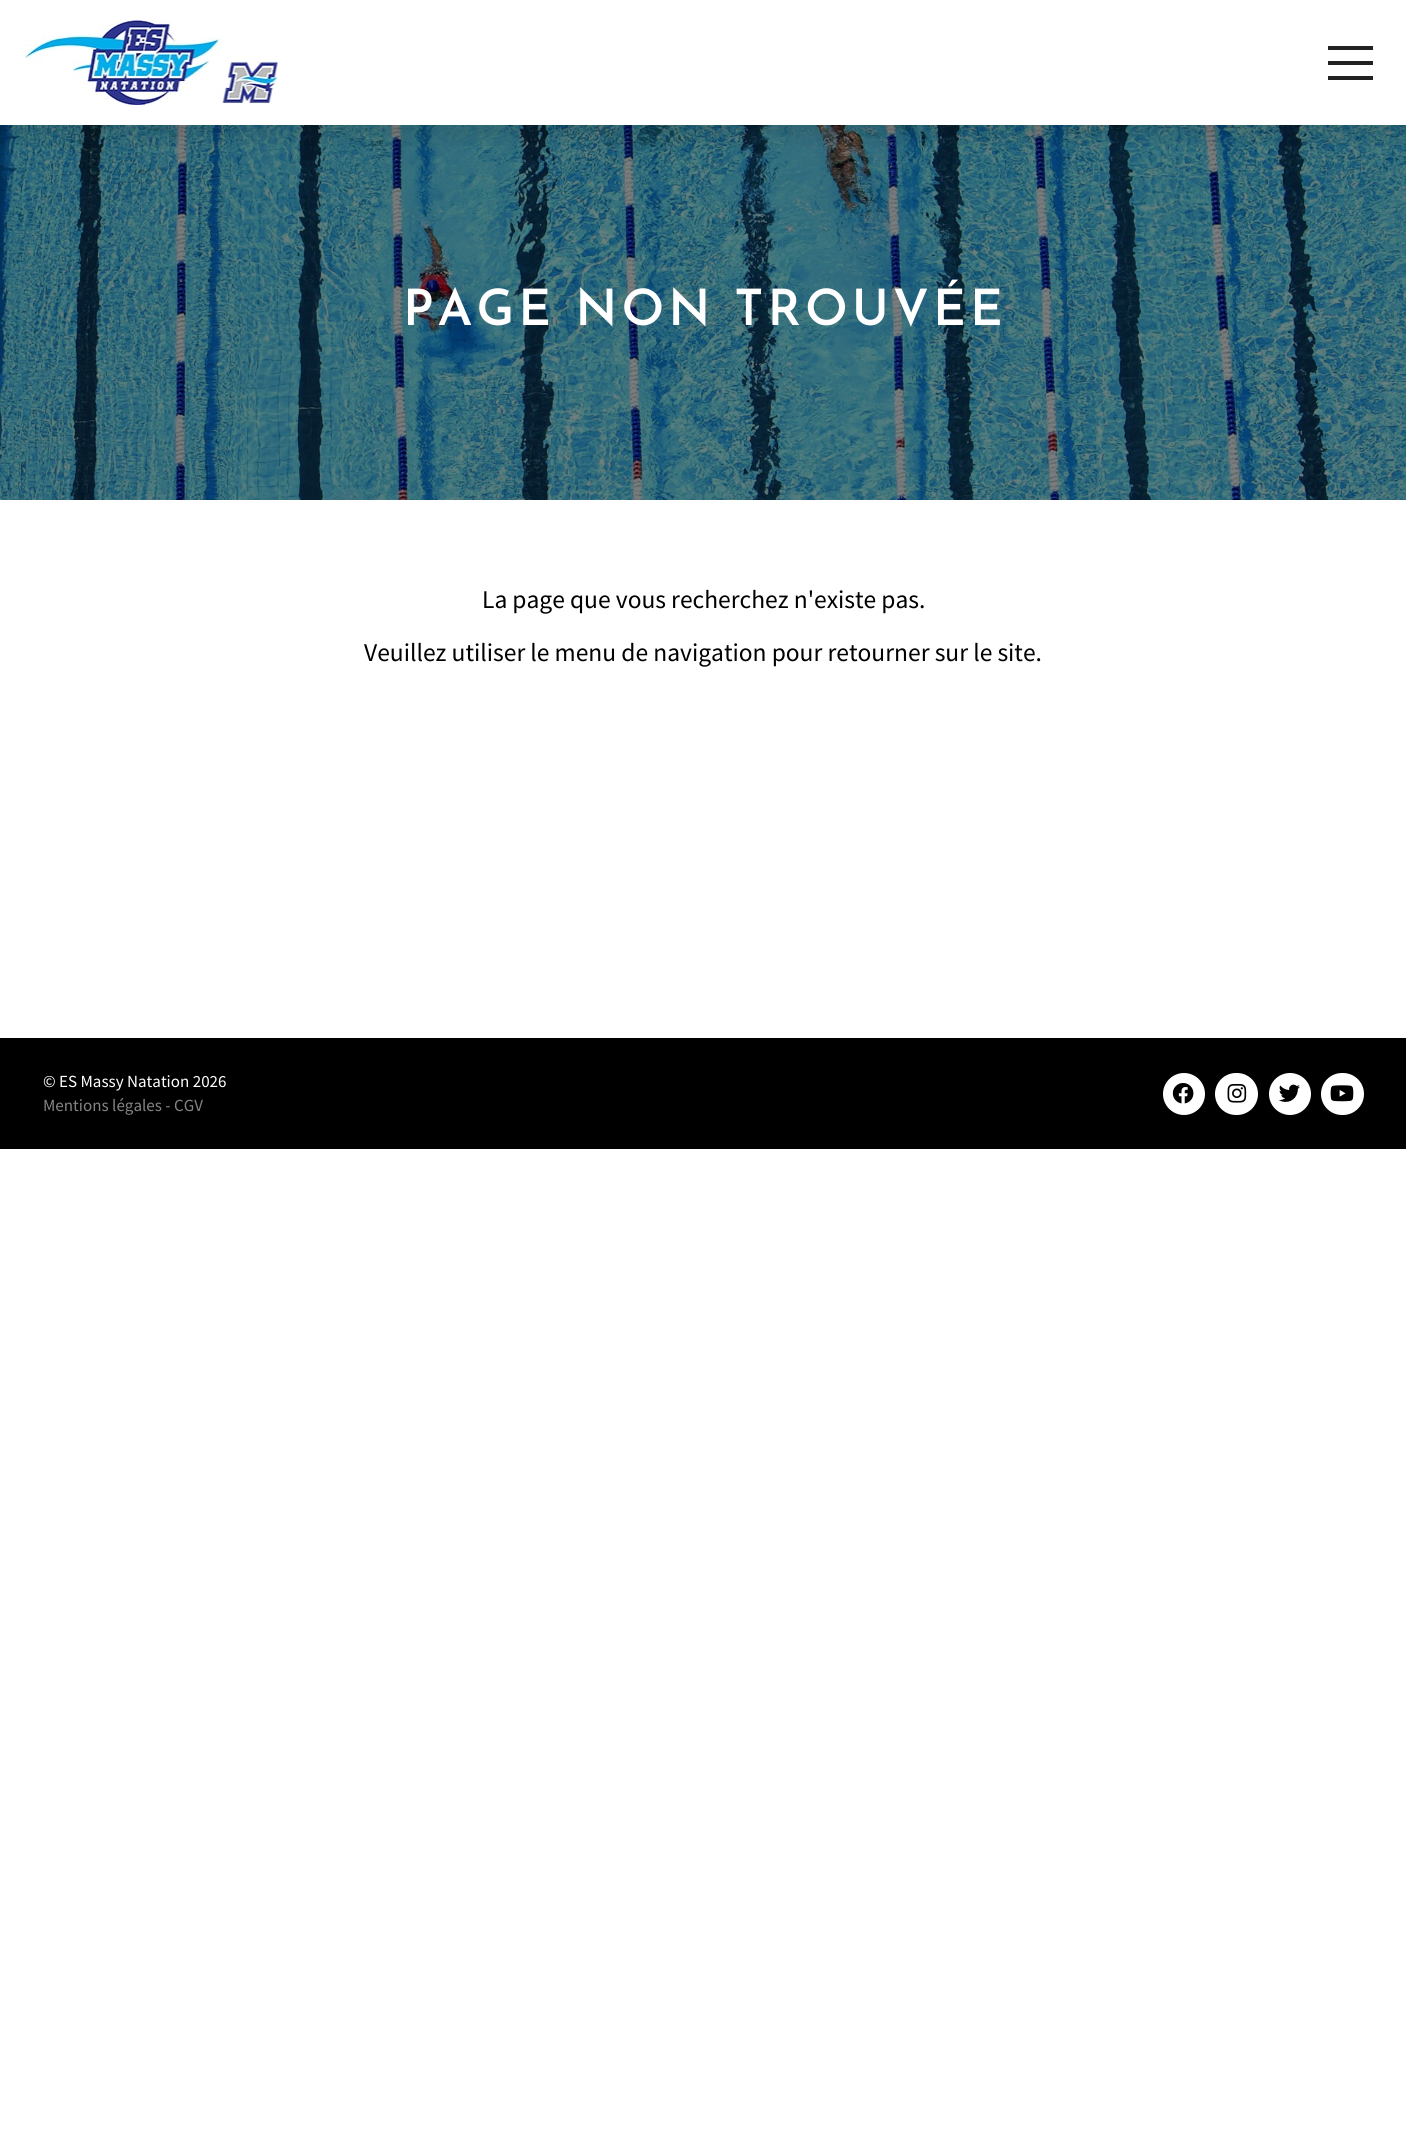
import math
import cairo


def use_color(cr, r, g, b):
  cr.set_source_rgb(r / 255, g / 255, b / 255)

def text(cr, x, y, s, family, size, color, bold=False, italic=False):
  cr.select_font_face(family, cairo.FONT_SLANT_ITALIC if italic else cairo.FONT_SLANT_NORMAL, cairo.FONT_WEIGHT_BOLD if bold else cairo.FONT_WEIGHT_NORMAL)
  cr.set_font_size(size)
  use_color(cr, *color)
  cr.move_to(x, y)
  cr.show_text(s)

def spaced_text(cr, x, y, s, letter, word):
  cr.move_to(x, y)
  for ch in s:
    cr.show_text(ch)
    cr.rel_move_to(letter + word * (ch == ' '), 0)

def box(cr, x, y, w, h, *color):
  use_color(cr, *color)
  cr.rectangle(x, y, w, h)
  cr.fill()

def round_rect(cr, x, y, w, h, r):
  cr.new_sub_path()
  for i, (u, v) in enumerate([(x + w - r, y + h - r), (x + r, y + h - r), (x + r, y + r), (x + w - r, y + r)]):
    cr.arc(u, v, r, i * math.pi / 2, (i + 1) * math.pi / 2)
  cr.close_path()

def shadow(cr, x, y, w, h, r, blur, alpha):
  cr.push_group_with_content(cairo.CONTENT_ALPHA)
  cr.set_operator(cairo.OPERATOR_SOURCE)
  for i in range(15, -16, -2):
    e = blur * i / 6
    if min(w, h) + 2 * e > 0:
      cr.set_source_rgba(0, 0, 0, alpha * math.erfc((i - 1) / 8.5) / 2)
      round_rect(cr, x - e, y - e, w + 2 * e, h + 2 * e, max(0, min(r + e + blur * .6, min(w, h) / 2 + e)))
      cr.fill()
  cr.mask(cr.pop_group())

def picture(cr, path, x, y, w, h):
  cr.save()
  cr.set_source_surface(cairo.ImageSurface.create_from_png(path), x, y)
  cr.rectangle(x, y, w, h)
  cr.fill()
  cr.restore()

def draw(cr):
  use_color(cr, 255, 255, 255)
  cr.paint()
  picture(cr, "img_02.png", 0, 125, 1406, 375)
  cr.save()
  cr.rectangle(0, 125, 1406, 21)
  cr.clip()
  use_color(cr, 0, 0, 0)
  shadow(cr, 0, 4, 1406, 125, 0, 15.5, 0.15)
  cr.restore()
  picture(cr, "img_01.png", 25, 20, 253, 85)
  box(cr, 1328, 46, 45, 4, 34, 34, 34)
  box(cr, 1328, 61, 45, 4, 34, 34, 34)
  box(cr, 1328, 76, 45, 4, 34, 34, 34)
  box(cr, 0, 1038, 1406, 111, 0, 0, 0)
  use_color(cr, 255, 255, 255)
  cr.arc(1184, 1094, 21, 0, 2 * math.pi)
  cr.fill()
  picture(cr, "img_03.png", 1172, 1083, 22, 21)
  round_rect(cr, 1215, 1073, 43, 42, 21)
  cr.fill()
  picture(cr, "img_04.png", 1227, 1084, 20, 19)
  cr.arc(1290, 1094, 21, 0, 2 * math.pi)
  cr.fill()
  picture(cr, "img_05.png", 1279, 1084, 21, 18)
  round_rect(cr, 1321, 1073, 43, 42, 21)
  cr.fill()
  picture(cr, "img_06.png", 1330, 1085, 24, 17)
  cr.select_font_face("Josefin Sans SemiBold")
  cr.set_font_size(50)
  spaced_text(cr, 403, 325, "PAGE NON TROUVÉE", 4, 0)
  text(cr, 482, 608, "La page que vous recherchez n'existe pas.", "Source Sans Pro", 25.5, (0, 0, 0))
  text(cr, 364, 661, "Veuillez utiliser le menu de navigation pour retourner sur le site.", "Source Sans Pro", 25.5, (0, 0, 0))
  text(cr, 43, 1087, "© ES Massy Natation 2026", "Source Sans Pro", 17, (255, 255, 255))
  text(cr, 43, 1111, "Mentions légales - CGV", "Source Sans Pro", 17, (133, 133, 133))


surface = cairo.ImageSurface(cairo.FORMAT_RGB24, 1406, 2154)
cr = cairo.Context(surface)
options = cairo.FontOptions()
options.set_hint_metrics(cairo.HINT_METRICS_OFF)
options.set_hint_style(cairo.HINT_STYLE_NONE)
cr.set_font_options(options)
cr.set_miter_limit(4)
draw(cr)
surface.write_to_png("out.png")
